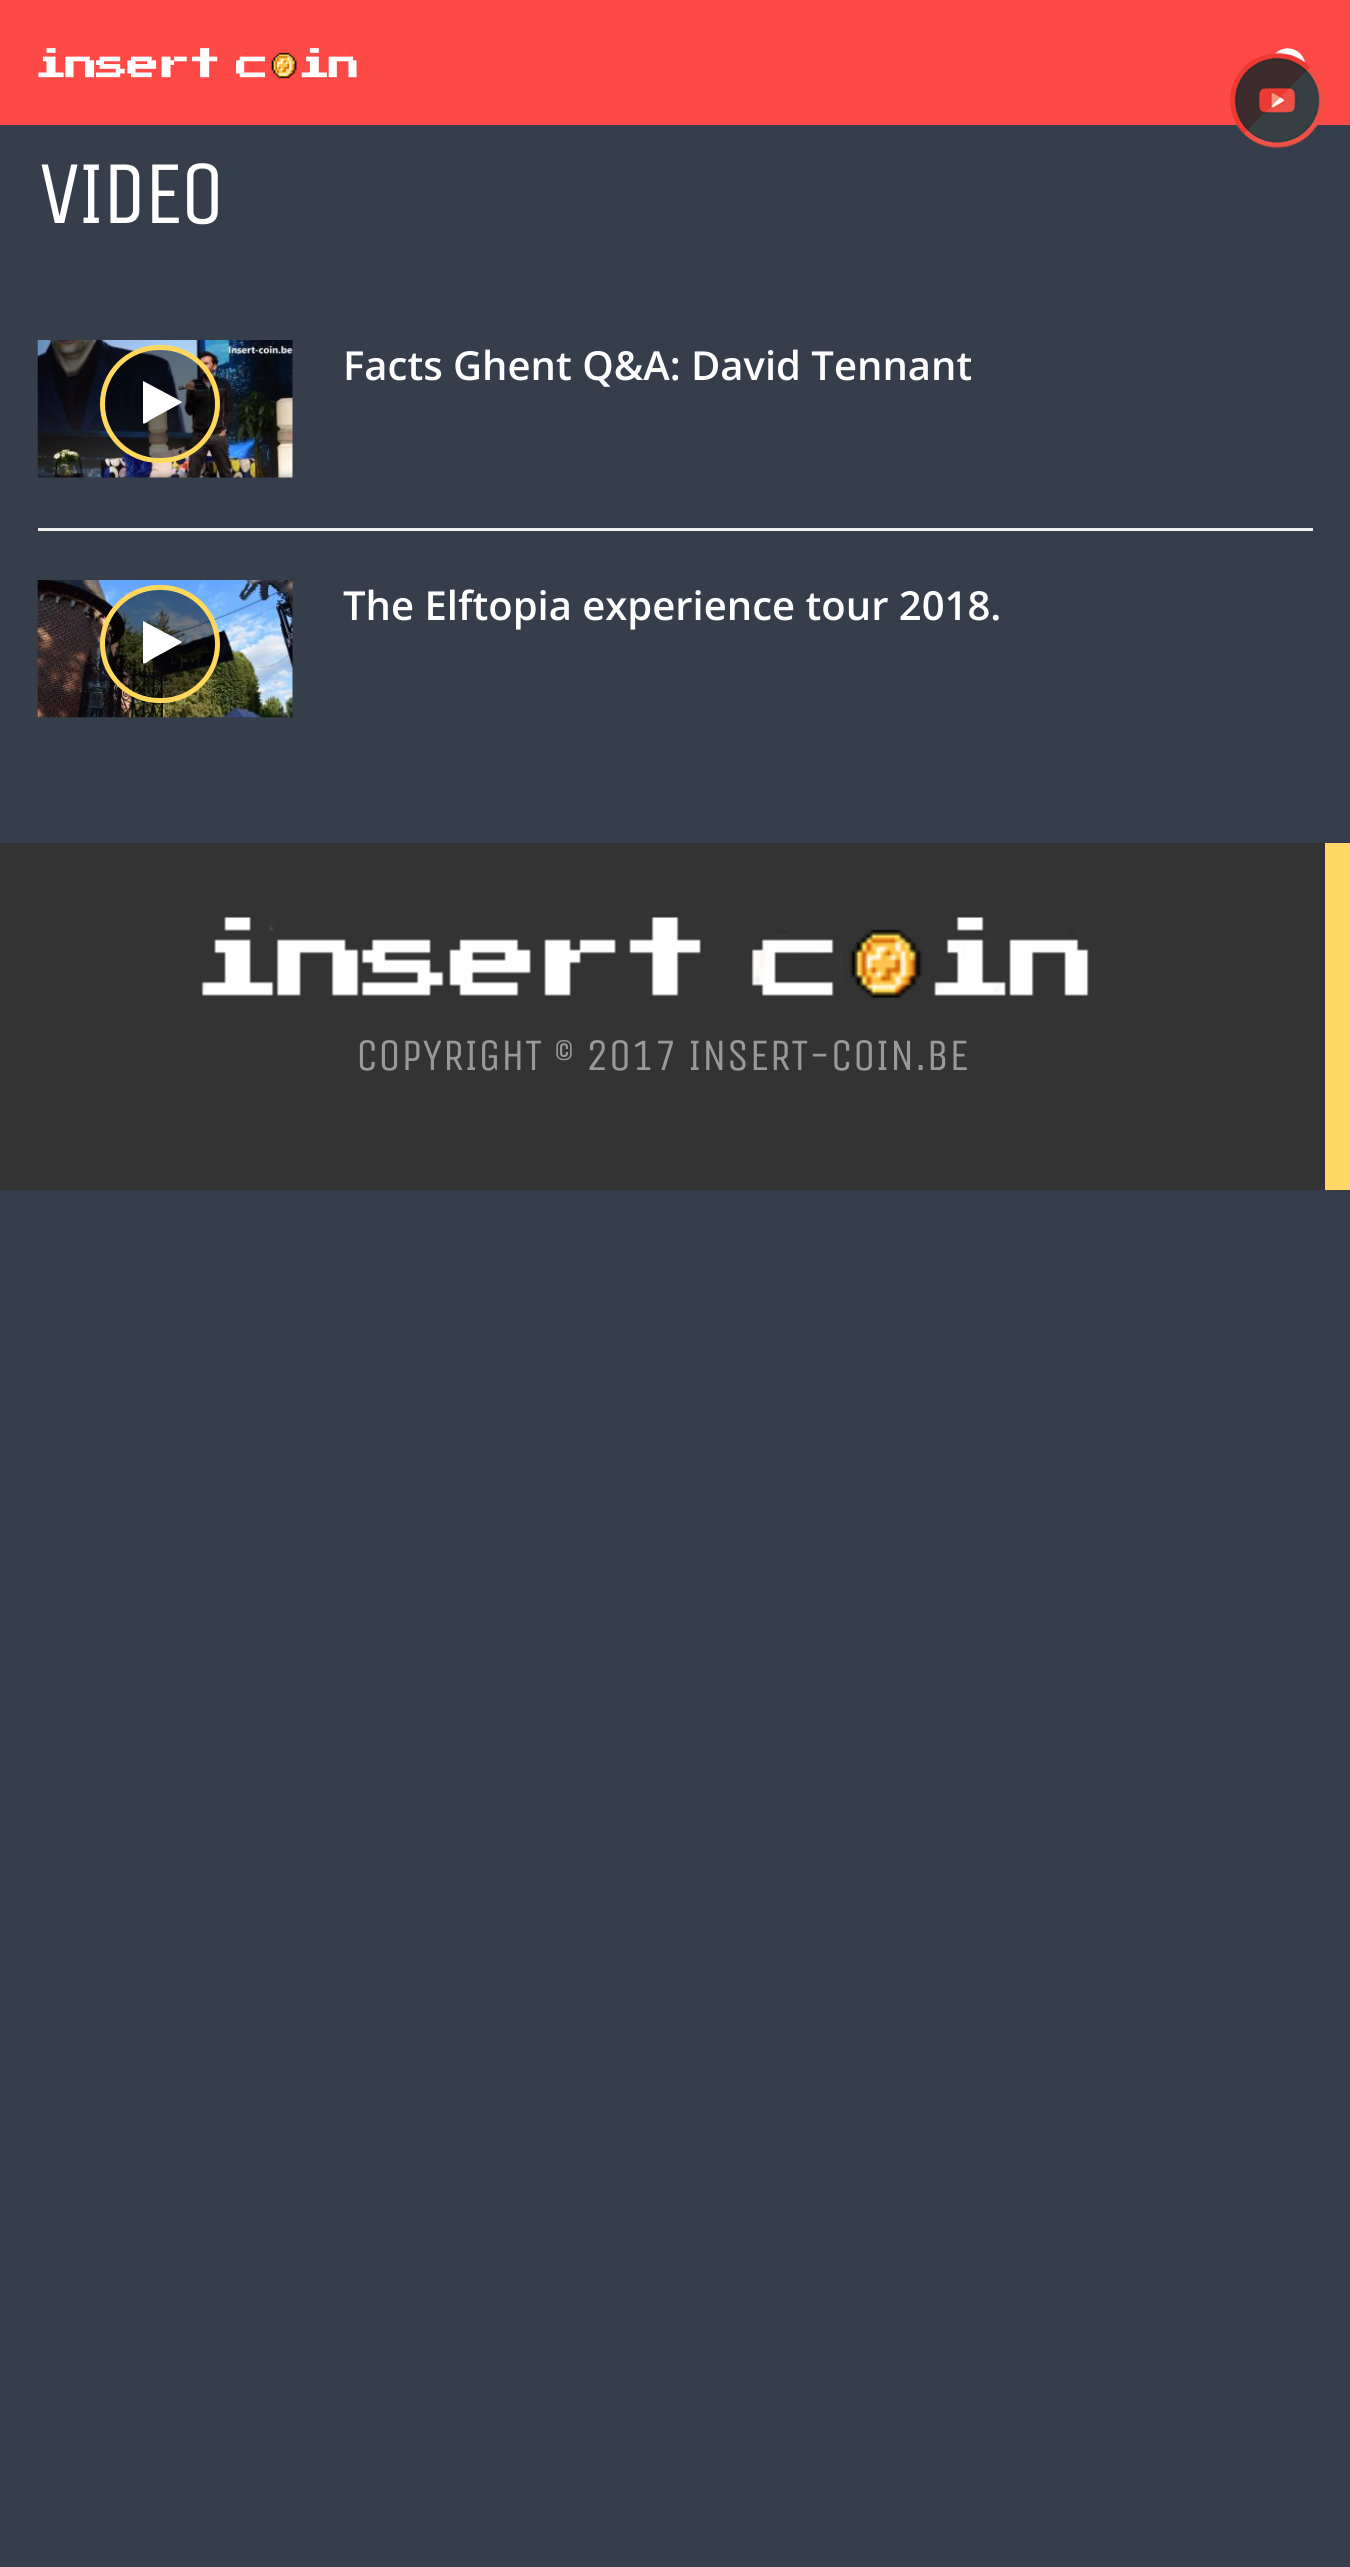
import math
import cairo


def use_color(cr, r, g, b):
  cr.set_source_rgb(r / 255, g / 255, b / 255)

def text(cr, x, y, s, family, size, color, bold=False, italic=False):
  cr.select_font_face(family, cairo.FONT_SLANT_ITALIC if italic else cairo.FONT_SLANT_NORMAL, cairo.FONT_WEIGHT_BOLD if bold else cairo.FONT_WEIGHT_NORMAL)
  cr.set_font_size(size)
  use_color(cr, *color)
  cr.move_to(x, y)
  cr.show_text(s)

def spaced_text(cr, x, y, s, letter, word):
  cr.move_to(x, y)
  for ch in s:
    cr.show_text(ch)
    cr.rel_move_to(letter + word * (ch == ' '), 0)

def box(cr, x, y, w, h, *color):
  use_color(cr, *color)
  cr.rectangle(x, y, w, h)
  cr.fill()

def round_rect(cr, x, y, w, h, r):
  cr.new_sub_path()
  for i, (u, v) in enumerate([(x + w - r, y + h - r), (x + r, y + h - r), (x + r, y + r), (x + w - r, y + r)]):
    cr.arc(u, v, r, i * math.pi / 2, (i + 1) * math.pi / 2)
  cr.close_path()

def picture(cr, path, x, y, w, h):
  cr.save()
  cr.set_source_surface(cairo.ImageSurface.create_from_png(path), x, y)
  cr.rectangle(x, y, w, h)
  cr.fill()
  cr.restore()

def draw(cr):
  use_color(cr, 54, 62, 76)
  cr.paint()
  box(cr, 0, 0, 1350, 125, 254, 74, 71)
  picture(cr, "img_03.png", 1274, 48, 31, 15)
  picture(cr, "img_01.png", 1230, 52, 95, 96)
  picture(cr, "img_02.png", 38, 48, 319, 31)
  box(cr, 38, 528, 1275, 3, 238, 238, 238)
  picture(cr, "img_04.png", 37, 340, 256, 138)
  cr.set_source_rgba(0, 0, 0, 0.5)
  round_rect(cr, 102.5, 347.5, 115, 113, 56.5)
  cr.fill_preserve()
  use_color(cr, 255, 216, 92)
  cr.set_line_width(5)
  cr.stroke()
  use_color(cr, 255, 255, 255)
  cr.new_path()
  cr.move_to(181, 403)
  cr.line_to(150, 420)
  cr.curve_to(149, 421, 144, 425, 143, 423)
  cr.line_to(143, 381)
  cr.line_to(175, 398)
  cr.line_to(182, 402)
  cr.close_path()
  cr.fill()
  picture(cr, "img_05.png", 37, 580, 256, 138)
  cr.set_source_rgba(0, 0, 0, 0.5)
  round_rect(cr, 102.5, 587.5, 115, 113, 56.5)
  cr.fill_preserve()
  use_color(cr, 255, 216, 92)
  cr.stroke()
  use_color(cr, 255, 255, 255)
  cr.new_path()
  cr.move_to(181, 643)
  cr.line_to(150, 660)
  cr.curve_to(149, 661, 144, 665, 143, 663)
  cr.line_to(143, 621)
  cr.line_to(175, 638)
  cr.line_to(182, 642)
  cr.close_path()
  cr.fill()
  box(cr, 0, 843, 1325, 347, 51, 51, 51)
  box(cr, 1325, 843, 25, 347, 254, 215, 102)
  picture(cr, "img_06.png", 201, 917, 888, 81)
  cr.select_font_face("Unica One")
  cr.set_font_size(90)
  use_color(cr, 255, 255, 255)
  spaced_text(cr, 38, 223, "VIDEO", -3.75, 0)
  text(cr, 343, 380, "Facts Ghent Q&A: David Tennant", "Open Sans SemiBold", 40, (255, 255, 255))
  text(cr, 343, 620, "The Elftopia experience tour 2018.", "Open Sans SemiBold", 40, (255, 255, 255))
  text(cr, 356, 1070, "COPYRIGHT © 2017 INSERT-COIN.BE", "Unica One", 45, (153, 153, 153))


surface = cairo.ImageSurface(cairo.FORMAT_RGB24, 1350, 2567)
cr = cairo.Context(surface)
options = cairo.FontOptions()
options.set_hint_metrics(cairo.HINT_METRICS_OFF)
options.set_hint_style(cairo.HINT_STYLE_NONE)
cr.set_font_options(options)
cr.set_miter_limit(4)
draw(cr)
surface.write_to_png("out.png")
